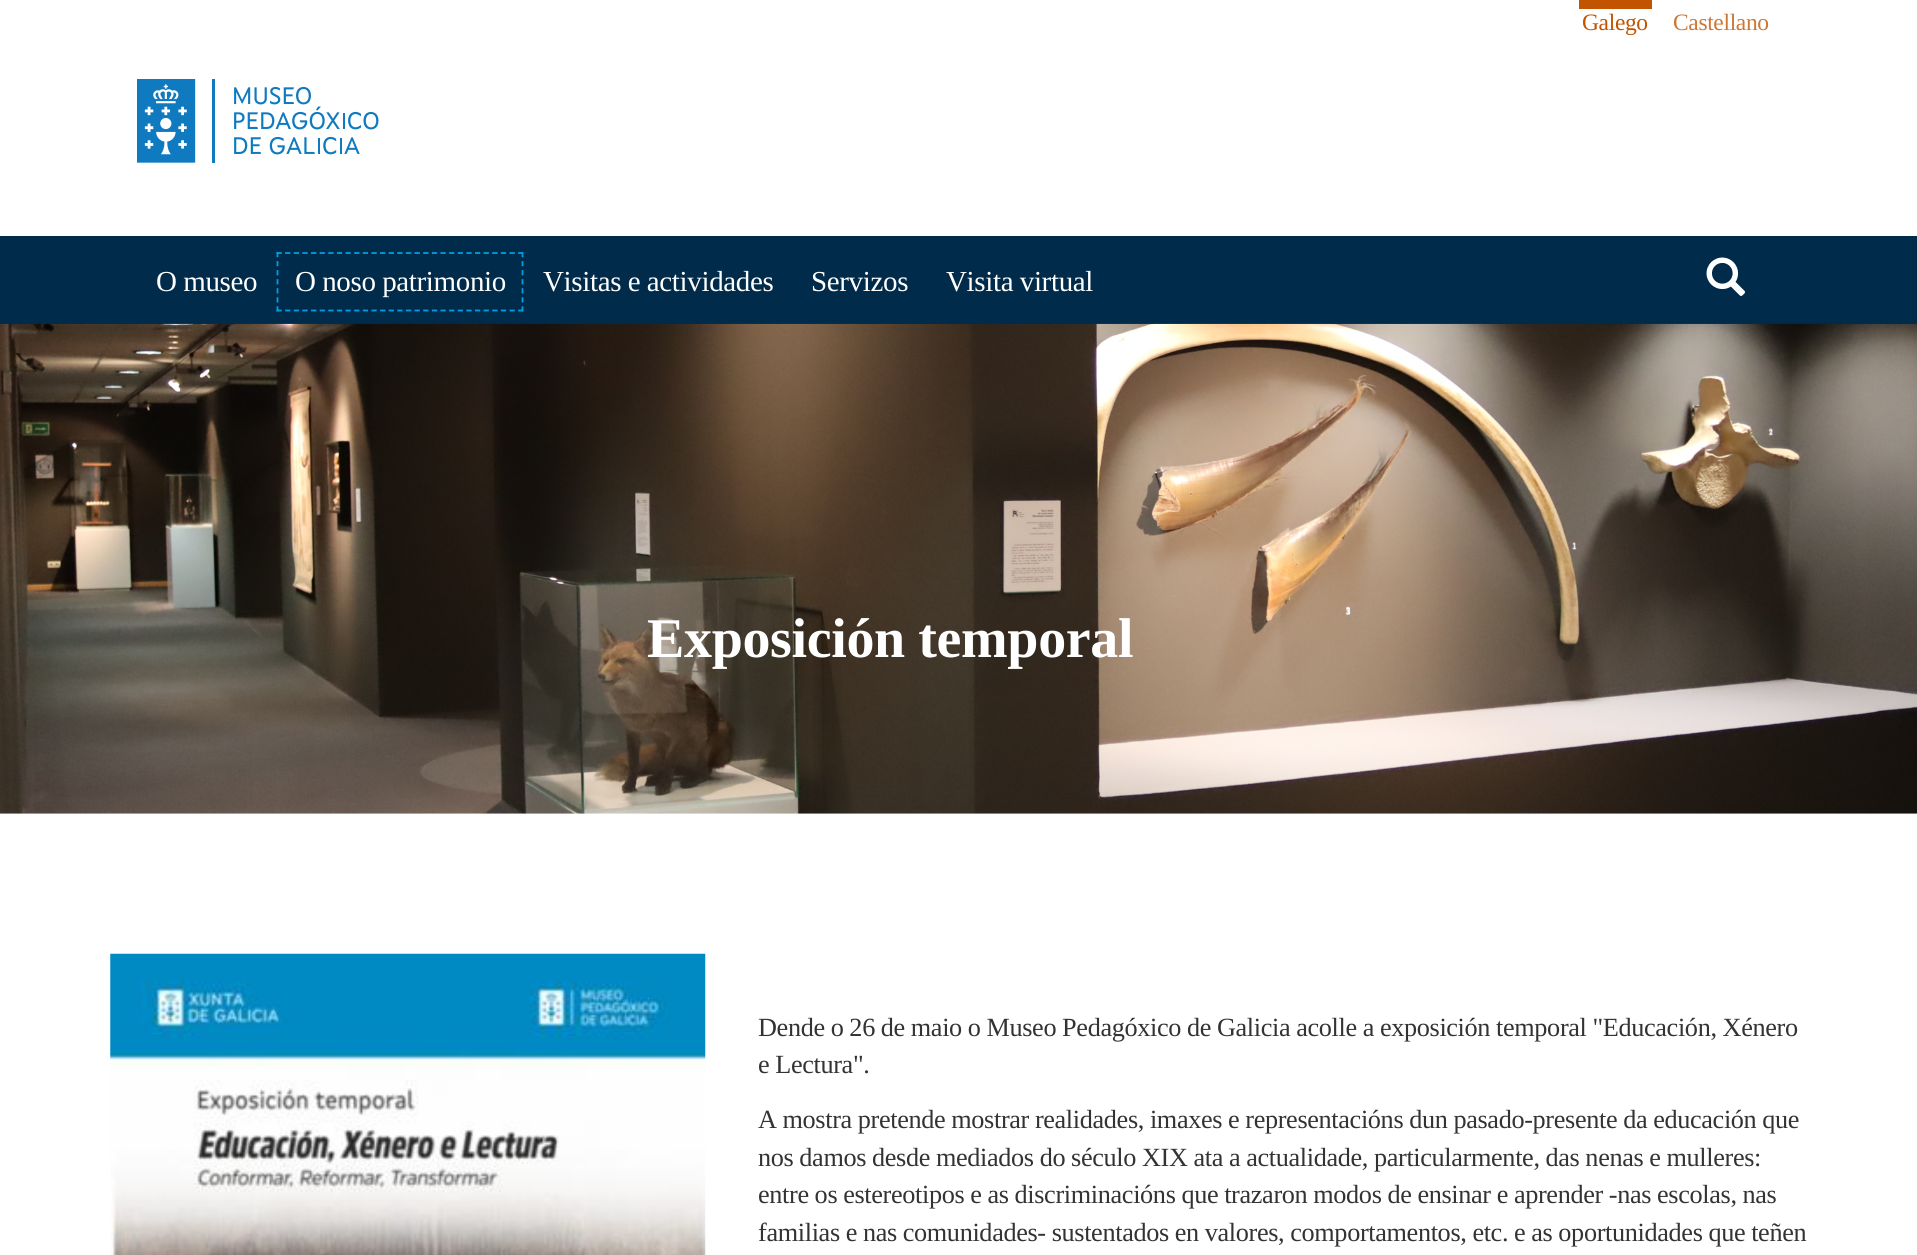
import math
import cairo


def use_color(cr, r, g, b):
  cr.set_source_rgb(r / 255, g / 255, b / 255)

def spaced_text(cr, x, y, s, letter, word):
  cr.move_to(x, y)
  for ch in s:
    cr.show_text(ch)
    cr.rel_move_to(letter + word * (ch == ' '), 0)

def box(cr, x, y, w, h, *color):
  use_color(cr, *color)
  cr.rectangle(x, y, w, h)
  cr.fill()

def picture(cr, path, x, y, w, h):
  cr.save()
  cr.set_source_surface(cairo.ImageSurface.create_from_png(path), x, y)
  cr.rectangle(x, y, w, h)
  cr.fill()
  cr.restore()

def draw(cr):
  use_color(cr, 255, 255, 255)
  cr.paint()
  box(cr, 1579, 0, 73, 9, 194, 84, 0)
  picture(cr, "img_01.png", 137, 79, 242, 84)
  box(cr, 0, 236, 1917, 88, 0, 43, 74)
  cr.new_path()
  cr.move_to(276.5, 253)
  cr.line_to(523, 253)
  use_color(cr, 0, 158, 224)
  cr.set_line_width(1.8)
  cr.set_dash([5.25, 3.38])
  cr.stroke()
  cr.new_path()
  cr.move_to(522.5, 252)
  cr.line_to(522.5, 311.5)
  cr.set_dash([5.25, 3.8])
  cr.stroke()
  cr.new_path()
  cr.move_to(276.5, 310.5)
  cr.line_to(523, 310.5)
  cr.set_dash([5.25, 3.38])
  cr.stroke()
  cr.new_path()
  cr.move_to(277.5, 252)
  cr.line_to(277.5, 311.5)
  cr.set_dash([5.25, 3.8])
  cr.stroke()
  picture(cr, "img_02.png", 1706, 257, 40, 39)
  picture(cr, "img_03.png", 0, 323, 1917, 491)
  picture(cr, "img_04.png", 110, 953, 596, 302)
  cr.select_font_face("Liberation Serif")
  cr.set_font_size(23.5)
  use_color(cr, 194, 84, 0)
  spaced_text(cr, 1582, 30, "Galego", -0.35, 0)
  use_color(cr, 206, 118, 51)
  spaced_text(cr, 1673, 30, "Castellano", -0.35, 0)
  cr.set_font_size(29)
  use_color(cr, 255, 255, 255)
  spaced_text(cr, 156, 291, "O museo", -0.35, -0.3)
  spaced_text(cr, 295, 291, "O noso patrimonio", -0.35, -0.3)
  spaced_text(cr, 543, 291, "Visitas e actividades", -0.35, -0.3)
  spaced_text(cr, 811, 291, "Servizos", -0.35, 0)
  spaced_text(cr, 946, 291, "Visita virtual", -0.35, -0.3)
  cr.select_font_face("Liberation Serif", cairo.FONT_SLANT_NORMAL, cairo.FONT_WEIGHT_BOLD)
  cr.set_font_size(56)
  spaced_text(cr, 647, 657, "Exposición temporal", -0.35, -0.3)
  cr.select_font_face("Liberation Serif")
  cr.set_font_size(26.25)
  use_color(cr, 51, 51, 51)
  spaced_text(cr, 758, 1036, "Dende o 26 de maio o Museo Pedagóxico de Galicia acolle a exposición temporal \"Educación, Xénero", -0.35, -0.3)
  spaced_text(cr, 758, 1073, "e Lectura\".", -0.35, -0.3)
  spaced_text(cr, 758, 1128, "A mostra pretende mostrar realidades, imaxes e representacións dun pasado-presente da educación que", -0.35, -0.3)
  spaced_text(cr, 758, 1166, "nos damos desde mediados do século XIX ata a actualidade, particularmente, das nenas e mulleres:", -0.35, -0.3)
  spaced_text(cr, 758, 1203, "entre os estereotipos e as discriminacións que trazaron modos de ensinar e aprender -nas escolas, nas", -0.35, -0.3)
  spaced_text(cr, 758, 1241, "familias e nas comunidades- sustentados en valores, comportamentos, etc. e as oportunidades que teñen", -0.35, -0.3)


surface = cairo.ImageSurface(cairo.FORMAT_RGB24, 1917, 1255)
cr = cairo.Context(surface)
options = cairo.FontOptions()
options.set_hint_metrics(cairo.HINT_METRICS_OFF)
options.set_hint_style(cairo.HINT_STYLE_NONE)
cr.set_font_options(options)
cr.set_miter_limit(4)
draw(cr)
surface.write_to_png("out.png")
